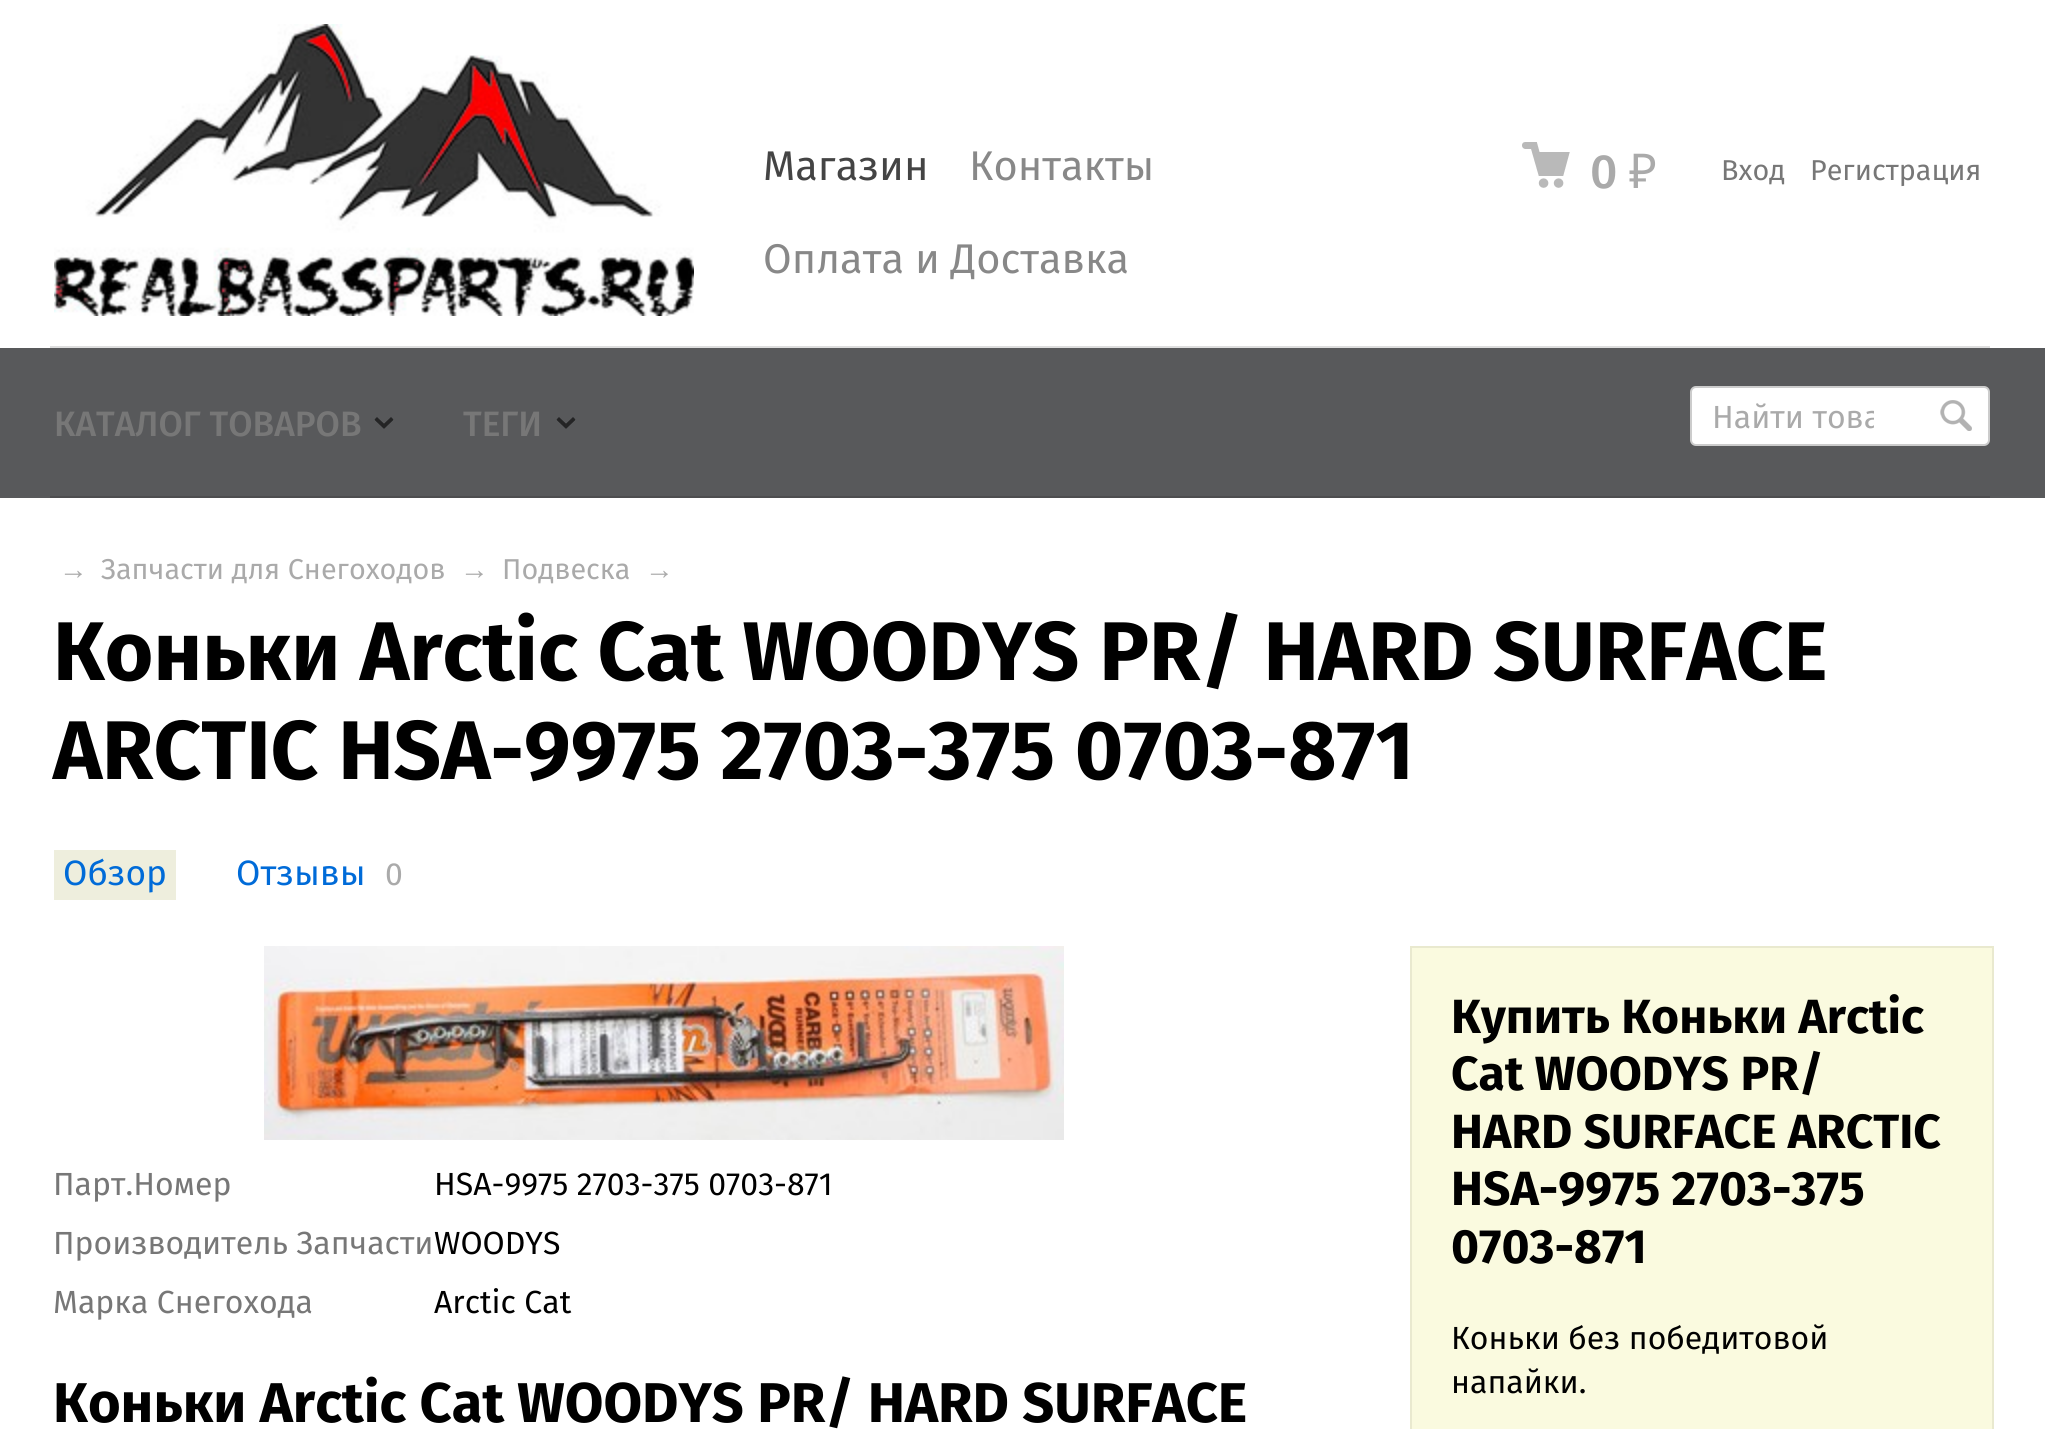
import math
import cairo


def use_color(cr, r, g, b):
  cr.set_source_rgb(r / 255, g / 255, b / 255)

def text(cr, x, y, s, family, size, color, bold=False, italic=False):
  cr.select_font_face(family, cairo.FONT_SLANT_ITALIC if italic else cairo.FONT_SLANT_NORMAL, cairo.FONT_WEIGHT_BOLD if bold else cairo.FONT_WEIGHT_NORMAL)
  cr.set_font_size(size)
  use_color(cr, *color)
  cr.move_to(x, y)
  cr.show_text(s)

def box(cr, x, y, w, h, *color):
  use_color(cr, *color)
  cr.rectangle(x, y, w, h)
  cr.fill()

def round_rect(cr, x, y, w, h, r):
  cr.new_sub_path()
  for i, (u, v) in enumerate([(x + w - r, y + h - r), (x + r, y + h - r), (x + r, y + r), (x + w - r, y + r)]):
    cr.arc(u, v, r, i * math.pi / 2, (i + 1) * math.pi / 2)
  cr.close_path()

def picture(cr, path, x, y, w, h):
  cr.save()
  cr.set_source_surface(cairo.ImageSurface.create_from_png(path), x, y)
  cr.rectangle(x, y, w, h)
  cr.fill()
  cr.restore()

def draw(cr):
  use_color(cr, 255, 255, 255)
  cr.paint()
  box(cr, 0, 348, 2045, 150, 88, 89, 91)
  picture(cr, "img_01.png", 54, 24, 640, 292)
  picture(cr, "img_02.png", 1522, 142, 48, 46)
  box(cr, 50, 346, 1940, 2, 222, 222, 222)
  box(cr, 50, 496, 1940, 2, 77, 77, 79)
  picture(cr, "img_03.png", 374, 417, 20, 12)
  picture(cr, "img_03.png", 556, 417, 20, 12)
  use_color(cr, 255, 255, 255)
  round_rect(cr, 1691, 387, 298, 58, 5)
  cr.fill_preserve()
  use_color(cr, 204, 204, 204)
  cr.stroke()
  picture(cr, "img_04.png", 1940, 400, 32, 31)
  box(cr, 54, 850, 122, 50, 238, 238, 221)
  picture(cr, "img_05.png", 264, 946, 800, 194)
  use_color(cr, 250, 250, 223)
  cr.rectangle(1411, 947, 582, 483)
  cr.fill_preserve()
  use_color(cr, 233, 233, 207)
  cr.stroke()
  text(cr, 763, 180, "Магазин", "Fira Sans", 41.5, (68, 68, 68))
  text(cr, 969, 180, "Контакты", "Fira Sans", 41.5, (136, 136, 136))
  text(cr, 763, 273, "Оплата и Доставка", "Fira Sans", 41.5, (136, 136, 136))
  text(cr, 1590, 188, "0", "Fira Sans Medium", 48, (170, 170, 170))
  text(cr, 1629, 188, "₽", "Noto Sans", 48, (170, 170, 170))
  text(cr, 1721, 180, "Вход", "Fira Sans", 28.75, (119, 119, 119))
  text(cr, 1810, 180, "Регистрация", "Fira Sans", 28.75, (119, 119, 119))
  text(cr, 54, 436, "КАТАЛОГ ТОВАРОВ", "Fira Sans Medium", 35.25, (119, 119, 119))
  text(cr, 463, 436, "ТЕГИ", "Fira Sans Medium", 35.25, (119, 119, 119))
  cr.save()
  cr.rectangle(1712, 398, 162, 38)
  cr.clip()
  text(cr, 1712, 428, "Найти това", "Fira Sans", 32, (170, 170, 170))
  cr.restore()
  text(cr, 59, 579, "→", "Liberation Sans", 28.75, (170, 170, 170))
  text(cr, 101, 579, "Запчасти для Снегоходов", "Fira Sans", 28.75, (170, 170, 170))
  text(cr, 460, 579, "→", "Liberation Sans", 28.75, (170, 170, 170))
  text(cr, 502, 579, "Подвеска", "Fira Sans", 28.75, (170, 170, 170))
  text(cr, 645, 579, "→", "Liberation Sans", 28.75, (170, 170, 170))
  text(cr, 53, 680, "Коньки Arctic Cat WOODYS PR/ HARD SURFACE", "Fira Sans", 83.2, (0, 0, 0), bold=True)
  text(cr, 53, 779, "ARCTIC HSA-9975 2703-375 0703-871", "Fira Sans", 83.2, (0, 0, 0), bold=True)
  text(cr, 63, 885, "Обзор", "Fira Sans", 35.25, (0, 107, 216))
  text(cr, 236, 885, "Отзывы", "Fira Sans", 35.25, (0, 107, 216))
  text(cr, 385, 885, "0", "Fira Sans", 32, (170, 170, 170))
  text(cr, 53, 1195, "Парт.Номер", "Fira Sans", 32, (119, 119, 119))
  text(cr, 434, 1195, "HSA-9975 2703-375 0703-871", "Fira Sans", 32, (0, 0, 0))
  text(cr, 53, 1254, "Производитель Запчасти", "Fira Sans", 32, (119, 119, 119))
  text(cr, 434, 1254, "WOODYS", "Fira Sans", 32, (0, 0, 0))
  text(cr, 53, 1313, "Марка Снегохода", "Fira Sans", 32, (119, 119, 119))
  text(cr, 434, 1313, "Arctic Cat", "Fira Sans", 32, (0, 0, 0))
  text(cr, 53, 1422, "Коньки Arctic Cat WOODYS PR/ HARD SURFACE", "Fira Sans", 56, (0, 0, 0), bold=True)
  text(cr, 1451, 1033, "Купить Коньки Arctic", "Fira Sans", 48, (0, 0, 0), bold=True)
  text(cr, 1451, 1090, "Cat WOODYS PR/", "Fira Sans", 48, (0, 0, 0), bold=True)
  text(cr, 1451, 1148, "HARD SURFACE ARCTIC", "Fira Sans", 48, (0, 0, 0), bold=True)
  text(cr, 1451, 1205, "HSA-9975 2703-375", "Fira Sans", 48, (0, 0, 0), bold=True)
  text(cr, 1451, 1263, "0703-871", "Fira Sans", 48, (0, 0, 0), bold=True)
  text(cr, 1451, 1349, "Коньки без победитовой", "Fira Sans", 32, (0, 0, 0))
  text(cr, 1451, 1393, "напайки.", "Fira Sans", 32, (0, 0, 0))


surface = cairo.ImageSurface(cairo.FORMAT_RGB24, 2045, 1429)
cr = cairo.Context(surface)
options = cairo.FontOptions()
options.set_hint_metrics(cairo.HINT_METRICS_OFF)
options.set_hint_style(cairo.HINT_STYLE_NONE)
cr.set_font_options(options)
cr.set_miter_limit(4)
draw(cr)
surface.write_to_png("out.png")
